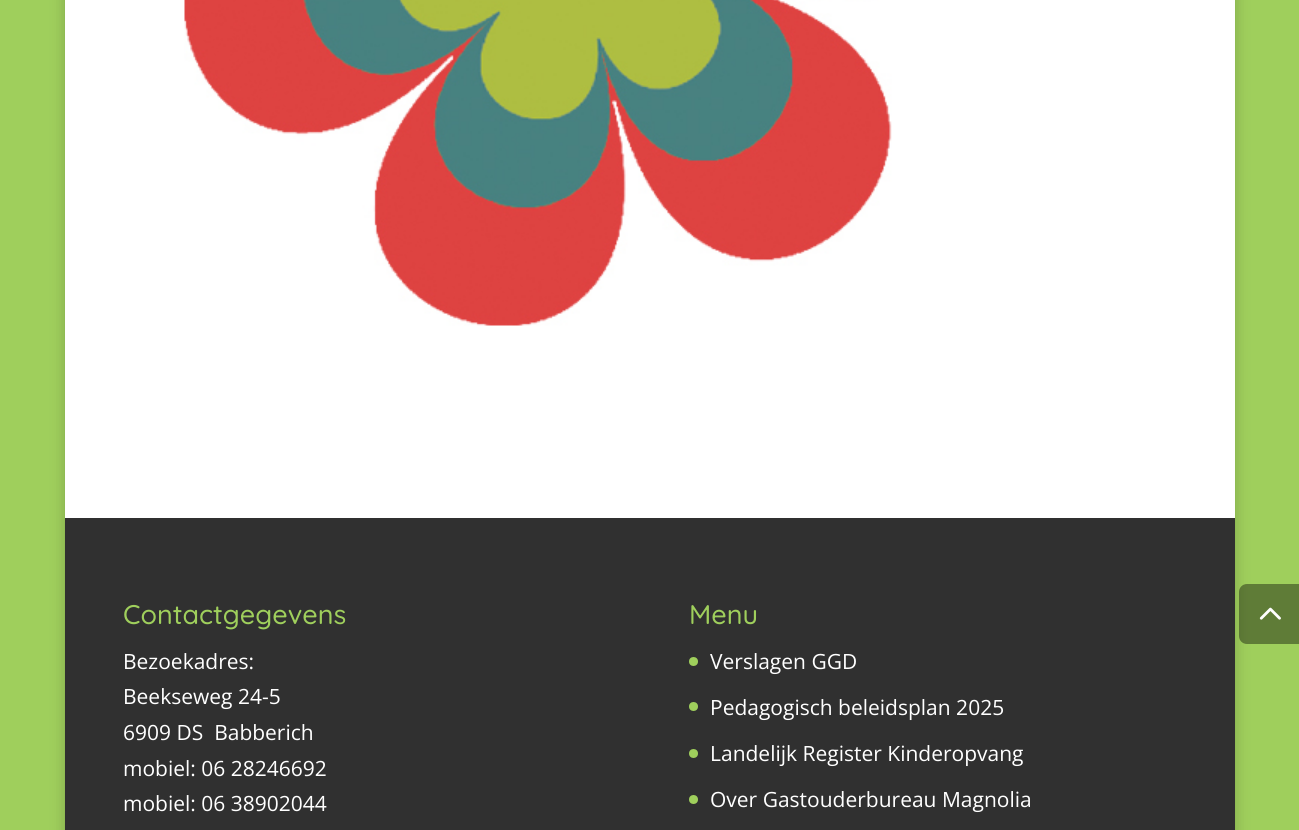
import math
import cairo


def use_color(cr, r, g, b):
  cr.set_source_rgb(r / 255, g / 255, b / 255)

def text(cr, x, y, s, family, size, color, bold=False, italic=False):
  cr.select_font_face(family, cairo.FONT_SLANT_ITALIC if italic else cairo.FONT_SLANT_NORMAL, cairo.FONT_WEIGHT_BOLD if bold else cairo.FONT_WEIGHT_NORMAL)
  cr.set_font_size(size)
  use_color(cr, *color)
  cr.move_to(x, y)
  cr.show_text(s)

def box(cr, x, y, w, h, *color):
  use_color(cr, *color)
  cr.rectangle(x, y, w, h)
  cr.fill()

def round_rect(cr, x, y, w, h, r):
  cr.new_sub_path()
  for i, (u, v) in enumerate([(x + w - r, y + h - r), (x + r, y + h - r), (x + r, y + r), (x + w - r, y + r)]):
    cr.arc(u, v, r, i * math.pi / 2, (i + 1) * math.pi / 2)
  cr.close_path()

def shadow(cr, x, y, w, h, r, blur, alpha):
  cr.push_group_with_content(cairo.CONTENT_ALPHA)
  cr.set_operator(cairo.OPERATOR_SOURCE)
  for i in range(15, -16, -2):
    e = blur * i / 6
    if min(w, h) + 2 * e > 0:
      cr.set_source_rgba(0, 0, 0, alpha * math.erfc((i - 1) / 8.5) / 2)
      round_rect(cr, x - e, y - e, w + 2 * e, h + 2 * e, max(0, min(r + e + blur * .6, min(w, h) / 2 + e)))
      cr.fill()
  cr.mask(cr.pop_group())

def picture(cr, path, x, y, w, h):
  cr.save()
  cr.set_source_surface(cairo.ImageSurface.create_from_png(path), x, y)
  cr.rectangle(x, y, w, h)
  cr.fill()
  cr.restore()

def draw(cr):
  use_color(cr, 159, 207, 92)
  cr.paint()
  use_color(cr, 0, 0, 0)
  shadow(cr, 65, -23, 1170, 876, 0, 7.5, 0.2)
  box(cr, 65, 0, 1170, 518, 255, 255, 255)
  picture(cr, "img_01.png", 184, 0, 708, 326)
  box(cr, 65, 518, 1170, 312, 48, 48, 48)
  use_color(cr, 159, 207, 92)
  cr.arc(693.5, 661.5, 4.5, 0, 2 * math.pi)
  cr.fill()
  cr.arc(693.5, 706.5, 4.5, 0, 2 * math.pi)
  cr.fill()
  cr.arc(693.5, 753.5, 4.5, 0, 2 * math.pi)
  cr.fill()
  cr.arc(693.5, 799.5, 4.5, 0, 2 * math.pi)
  cr.fill()
  cr.set_source_rgba(0, 0, 0, 0.4)
  cr.new_path()
  cr.move_to(1247, 584)
  cr.line_to(1299, 584)
  cr.line_to(1299, 644)
  cr.line_to(1247, 644)
  cr.curve_to(1242.5, 644, 1239, 640.5, 1239, 636)
  cr.line_to(1239, 592)
  cr.curve_to(1239, 587.5, 1242.5, 584, 1247, 584)
  cr.close_path()
  cr.fill()
  picture(cr, "img_02.png", 1259, 607, 22, 13)
  text(cr, 123, 624, "Contactgegevens", "Quicksand Medium", 27, (159, 207, 92))
  text(cr, 123, 669, "Bezoekadres:", "Open Sans", 21, (255, 255, 255))
  text(cr, 123, 704, "Beekseweg 24-5", "Open Sans", 21, (255, 255, 255))
  text(cr, 123, 740, "6909 DS  Babberich", "Open Sans", 21, (255, 255, 255))
  text(cr, 123, 776, "mobiel: 06 28246692", "Open Sans", 21, (255, 255, 255))
  text(cr, 123, 811, "mobiel: 06 38902044", "Open Sans", 21, (255, 255, 255))
  text(cr, 689, 624, "Menu", "Quicksand Medium", 27, (159, 207, 92))
  text(cr, 710, 669, "Verslagen GGD", "Open Sans", 21, (255, 255, 255))
  text(cr, 710, 715, "Pedagogisch beleidsplan 2025", "Open Sans", 21, (255, 255, 255))
  text(cr, 710, 761, "Landelijk Register Kinderopvang", "Open Sans", 21, (255, 255, 255))
  text(cr, 710, 807, "Over Gastouderbureau Magnolia", "Open Sans", 21, (255, 255, 255))


surface = cairo.ImageSurface(cairo.FORMAT_RGB24, 1299, 830)
cr = cairo.Context(surface)
options = cairo.FontOptions()
options.set_hint_metrics(cairo.HINT_METRICS_OFF)
options.set_hint_style(cairo.HINT_STYLE_NONE)
cr.set_font_options(options)
cr.set_miter_limit(4)
draw(cr)
surface.write_to_png("out.png")
